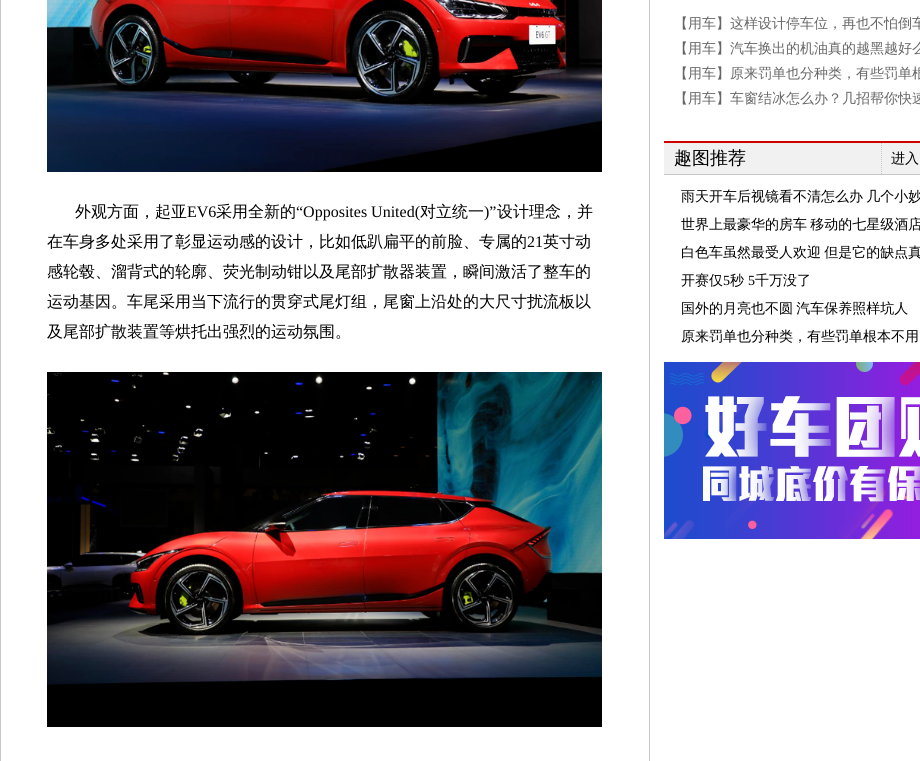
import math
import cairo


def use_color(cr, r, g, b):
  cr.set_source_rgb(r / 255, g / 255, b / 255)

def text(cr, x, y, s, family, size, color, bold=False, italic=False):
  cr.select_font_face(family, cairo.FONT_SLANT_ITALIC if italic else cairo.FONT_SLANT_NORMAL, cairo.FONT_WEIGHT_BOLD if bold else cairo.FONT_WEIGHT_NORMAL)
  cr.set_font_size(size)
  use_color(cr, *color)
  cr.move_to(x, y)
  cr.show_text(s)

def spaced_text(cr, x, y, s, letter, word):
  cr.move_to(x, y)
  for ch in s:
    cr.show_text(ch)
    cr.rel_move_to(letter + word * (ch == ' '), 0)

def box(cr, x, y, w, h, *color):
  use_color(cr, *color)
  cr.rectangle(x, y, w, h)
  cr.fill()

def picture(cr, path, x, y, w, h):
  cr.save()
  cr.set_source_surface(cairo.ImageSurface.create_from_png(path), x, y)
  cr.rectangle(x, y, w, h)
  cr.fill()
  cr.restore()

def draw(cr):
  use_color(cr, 255, 255, 255)
  cr.paint()
  box(cr, 649, 0, 1, 761, 199, 199, 199)
  box(cr, 0, 0, 1, 761, 199, 199, 199)
  picture(cr, "img_01.png", 47, 0, 555, 172)
  picture(cr, "img_02.png", 47, 372, 555, 355)
  box(cr, 664, 143, 256, 31, 242, 241, 241)
  box(cr, 664, 141, 256, 2, 206, 0, 0)
  box(cr, 664, 174, 256, 1, 199, 199, 199)
  cr.new_path()
  cr.move_to(881.5, 143)
  cr.line_to(881.5, 174)
  cr.set_line_width(1)
  cr.set_dash([1, 1])
  cr.stroke()
  picture(cr, "img_03.png", 664, 362, 256, 177)
  text(cr, 75, 217, "外观方面，起亚", "WenQuanYi Zen Hei Medium", 16, (0, 0, 0))
  text(cr, 187, 217, "EV6", "Liberation Serif", 16, (0, 0, 0))
  text(cr, 216, 217, "采用全新的", "WenQuanYi Zen Hei Medium", 16, (0, 0, 0))
  text(cr, 296, 217, "“Opposites United(", "Liberation Serif", 16, (0, 0, 0))
  text(cr, 420, 217, "对立统一", "WenQuanYi Zen Hei Medium", 16, (0, 0, 0))
  text(cr, 484, 217, ")”", "Liberation Serif", 16, (0, 0, 0))
  text(cr, 497, 217, "设计理念，并", "WenQuanYi Zen Hei Medium", 16, (0, 0, 0))
  text(cr, 47, 247, "在车身多处采用了彰显运动感的设计，比如低趴扁平的前脸、专属的", "WenQuanYi Zen Hei Medium", 16, (0, 0, 0))
  text(cr, 527, 247, "21", "Liberation Serif", 16, (0, 0, 0))
  text(cr, 543, 247, "英寸动", "WenQuanYi Zen Hei Medium", 16, (0, 0, 0))
  text(cr, 47, 277, "感轮毂、溜背式的轮廓、荧光制动钳以及尾部扩散器装置，瞬间激活了整车的", "WenQuanYi Zen Hei Medium", 16, (0, 0, 0))
  text(cr, 47, 307, "运动基因。车尾采用当下流行的贯穿式尾灯组，尾窗上沿处的大尺寸扰流板以", "WenQuanYi Zen Hei Medium", 16, (0, 0, 0))
  text(cr, 47, 337, "及尾部扩散装置等烘托出强烈的运动氛围。", "WenQuanYi Zen Hei Medium", 16, (0, 0, 0))
  text(cr, 674, 28, "【用车】这样设计停车位，再也不怕倒车", "WenQuanYi Zen Hei Medium", 14, (102, 102, 102))
  text(cr, 674, 53, "【用车】汽车换出的机油真的越黑越好么", "WenQuanYi Zen Hei Medium", 14, (102, 102, 102))
  text(cr, 674, 78, "【用车】原来罚单也分种类，有些罚单根", "WenQuanYi Zen Hei Medium", 14, (102, 102, 102))
  text(cr, 674, 103, "【用车】车窗结冰怎么办？几招帮你快速", "WenQuanYi Zen Hei Medium", 14, (102, 102, 102))
  text(cr, 674, 164, "趣图推荐", "WenQuanYi Zen Hei Medium", 18, (0, 0, 0))
  text(cr, 891, 163, "进入", "WenQuanYi Zen Hei Medium", 14, (0, 0, 0))
  spaced_text(cr, 681, 201, "雨天开车后视镜看不清怎么办 几个小妙", 0, -1)
  spaced_text(cr, 681, 229, "世界上最豪华的房车 移动的七星级酒店", 0, -1)
  spaced_text(cr, 681, 257, "白色车虽然最受人欢迎 但是它的缺点真", 0, -1)
  text(cr, 681, 285, "开赛仅", "WenQuanYi Zen Hei Medium", 14, (0, 0, 0))
  text(cr, 723, 285, "5", "Liberation Serif", 14, (0, 0, 0))
  text(cr, 730, 285, "秒", "WenQuanYi Zen Hei Medium", 14, (0, 0, 0))
  text(cr, 748, 285, "5", "Liberation Serif", 14, (0, 0, 0))
  text(cr, 755, 285, "千万没了", "WenQuanYi Zen Hei Medium", 14, (0, 0, 0))
  spaced_text(cr, 681, 313, "国外的月亮也不圆 汽车保养照样坑人", 0, -1)
  text(cr, 681, 341, "原来罚单也分种类，有些罚单根本不用", "WenQuanYi Zen Hei Medium", 14, (0, 0, 0))


surface = cairo.ImageSurface(cairo.FORMAT_RGB24, 920, 761)
cr = cairo.Context(surface)
options = cairo.FontOptions()
options.set_hint_metrics(cairo.HINT_METRICS_OFF)
options.set_hint_style(cairo.HINT_STYLE_NONE)
cr.set_font_options(options)
cr.set_miter_limit(4)
draw(cr)
surface.write_to_png("out.png")
